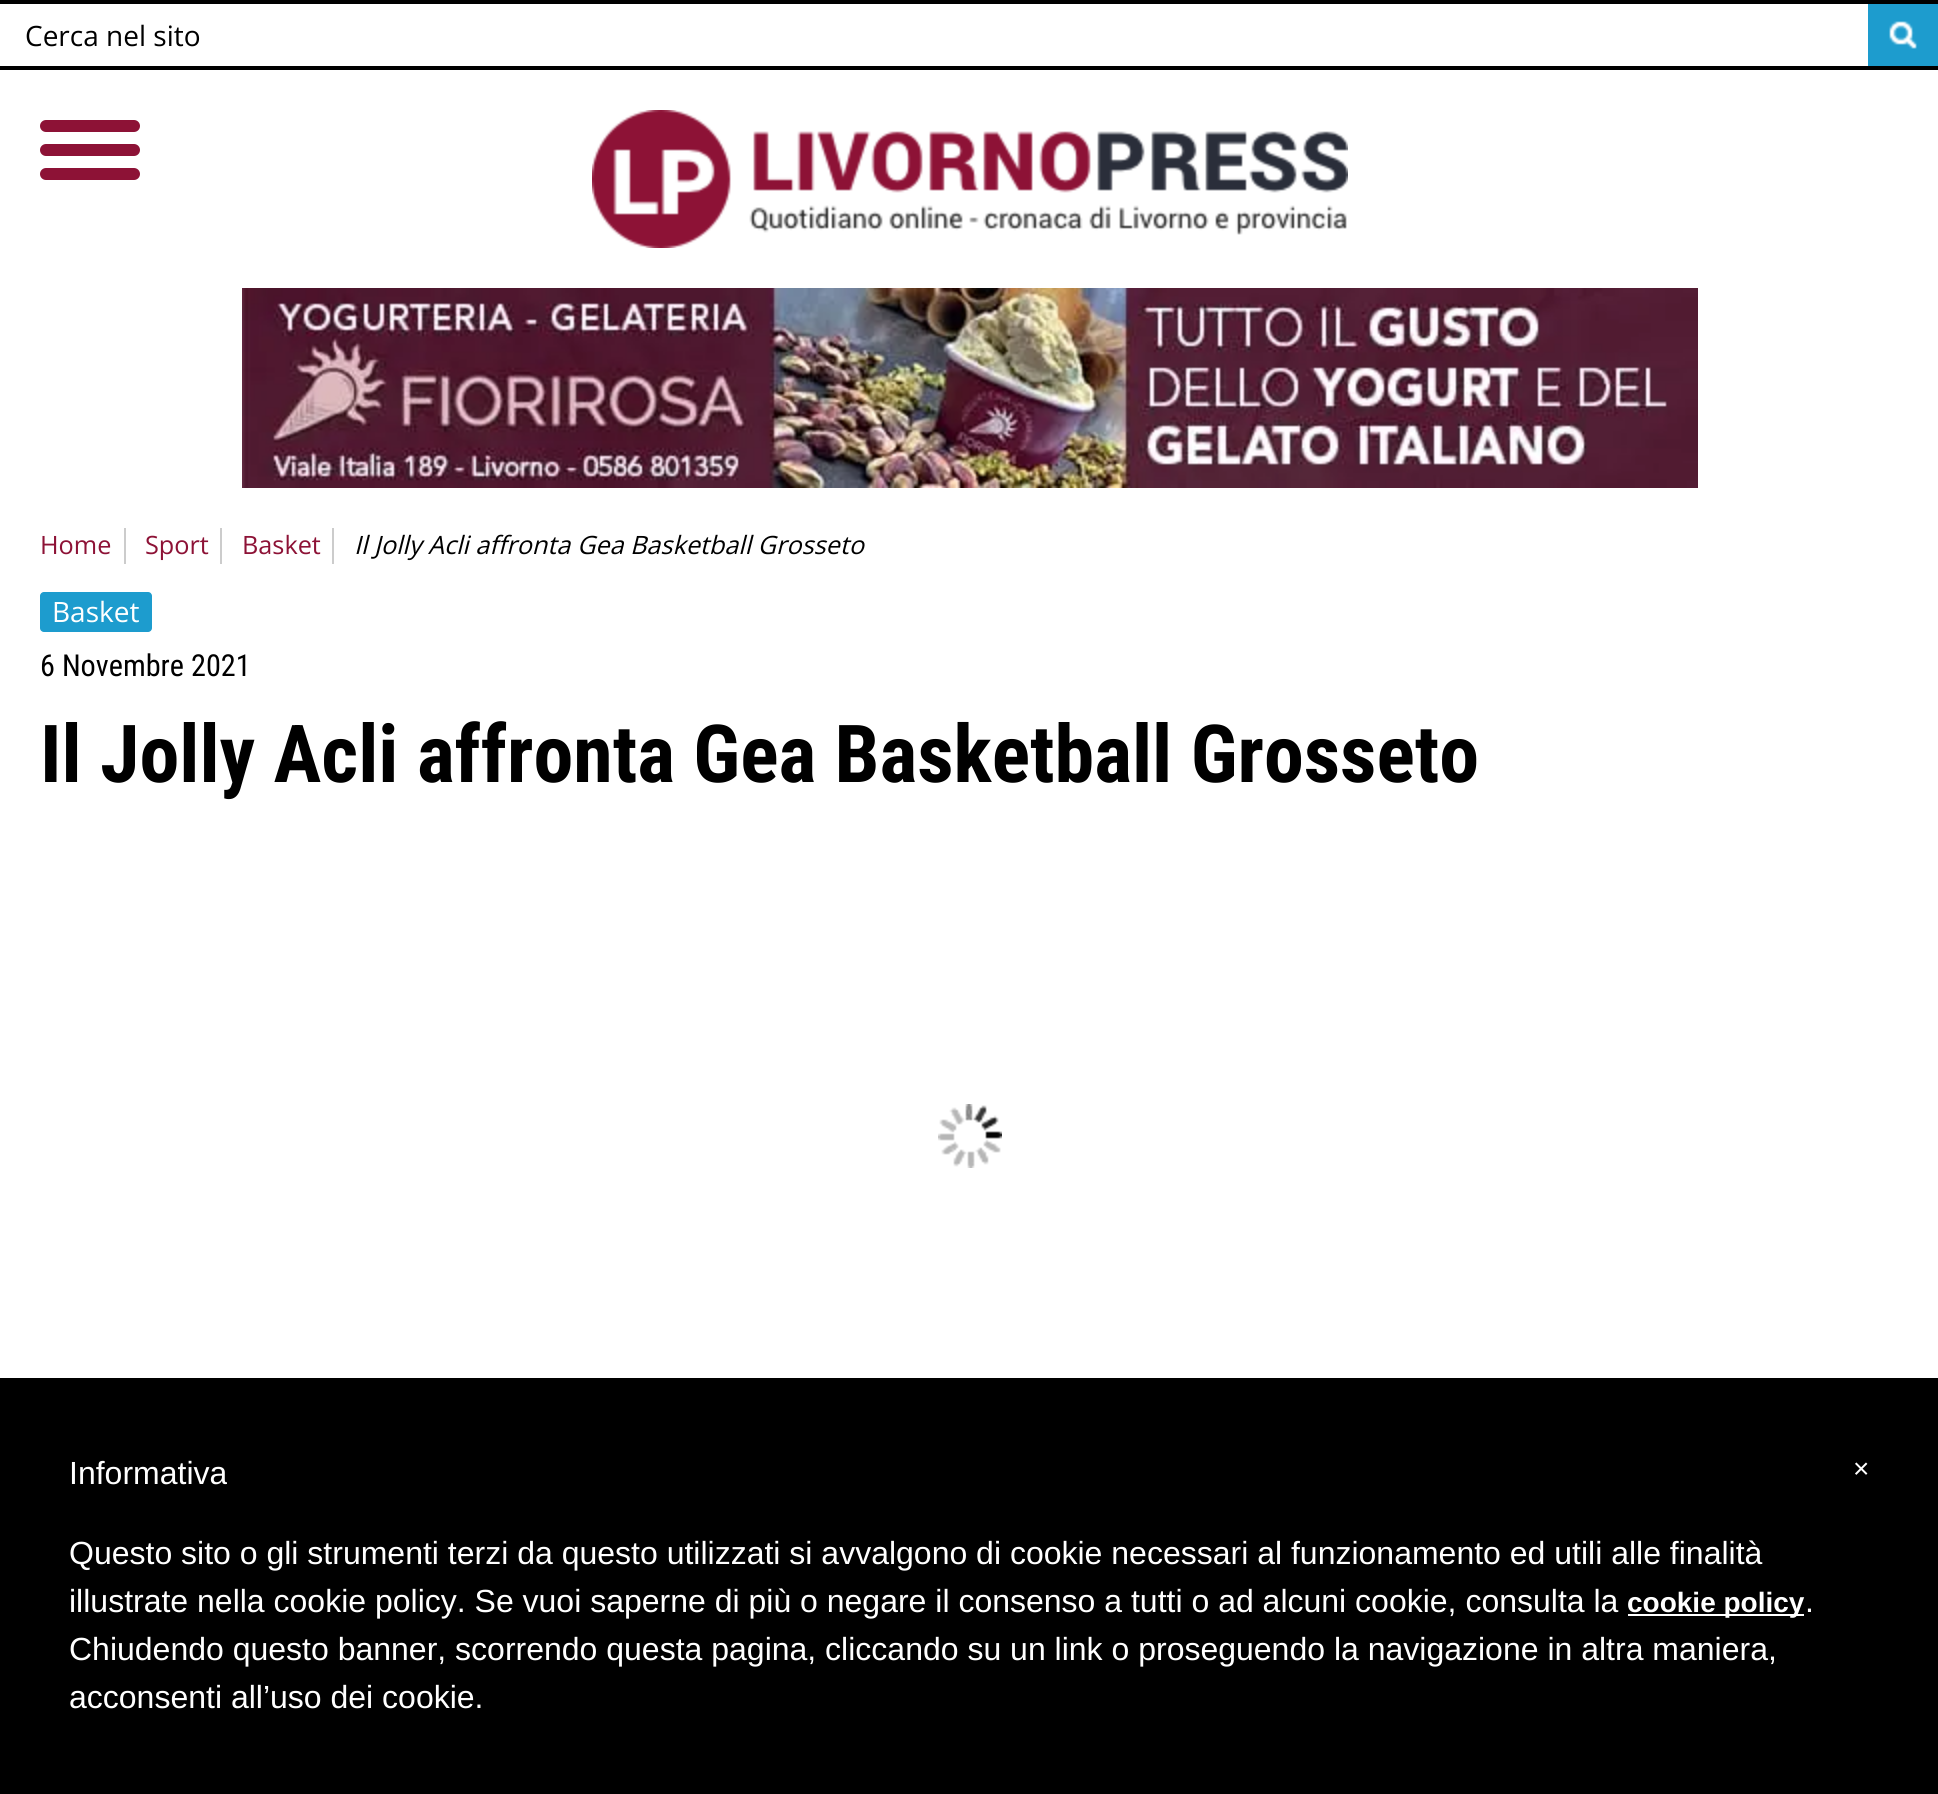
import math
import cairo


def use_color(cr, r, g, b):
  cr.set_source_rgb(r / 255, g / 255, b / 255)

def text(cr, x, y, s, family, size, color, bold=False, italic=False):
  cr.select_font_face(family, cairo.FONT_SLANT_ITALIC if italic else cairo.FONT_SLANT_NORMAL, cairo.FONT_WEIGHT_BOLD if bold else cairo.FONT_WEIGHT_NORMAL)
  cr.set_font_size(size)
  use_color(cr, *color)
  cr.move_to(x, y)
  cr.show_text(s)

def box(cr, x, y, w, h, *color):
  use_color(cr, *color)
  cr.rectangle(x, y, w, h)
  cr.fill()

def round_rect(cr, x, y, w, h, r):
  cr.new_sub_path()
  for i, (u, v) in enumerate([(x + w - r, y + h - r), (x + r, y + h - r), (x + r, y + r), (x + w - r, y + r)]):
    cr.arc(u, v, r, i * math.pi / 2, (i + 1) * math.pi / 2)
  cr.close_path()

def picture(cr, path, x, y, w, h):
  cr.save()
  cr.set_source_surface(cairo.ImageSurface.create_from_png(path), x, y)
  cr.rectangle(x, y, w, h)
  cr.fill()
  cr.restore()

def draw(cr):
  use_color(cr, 255, 255, 255)
  cr.paint()
  box(cr, 0, 0, 1938, 4, 0, 0, 0)
  box(cr, 0, 66, 1938, 4, 0, 0, 0)
  box(cr, 1868, 4, 70, 62, 29, 156, 206)
  picture(cr, "img_01.png", 1889, 21, 28, 28)
  use_color(cr, 141, 18, 54)
  round_rect(cr, 40, 120, 100, 12, 6)
  cr.fill()
  round_rect(cr, 40, 144, 100, 12, 6)
  cr.fill()
  round_rect(cr, 40, 168, 100, 12, 6)
  cr.fill()
  picture(cr, "img_02.png", 592, 110, 756, 138)
  picture(cr, "img_03.png", 242, 288, 1456, 200)
  box(cr, 124, 528, 2, 36, 204, 204, 204)
  box(cr, 220, 528, 2, 36, 204, 204, 204)
  box(cr, 332, 528, 2, 36, 204, 204, 204)
  use_color(cr, 29, 156, 206)
  round_rect(cr, 40, 592, 112, 40, 4)
  cr.fill()
  picture(cr, "img_04.png", 938, 1104, 64, 64)
  box(cr, 0, 1378, 1938, 416, 0, 0, 0)
  box(cr, 1628, 1614, 176, 2, 255, 255, 255)
  text(cr, 25, 46, "Cerca nel sito", "Open Sans", 28, (0, 0, 0))
  text(cr, 40, 554, "Home", "Open Sans", 25.25, (141, 18, 54))
  text(cr, 145, 554, "Sport", "Open Sans", 25.25, (141, 18, 54))
  text(cr, 242, 554, "Basket", "Open Sans", 25.25, (141, 18, 54))
  text(cr, 354, 554, "Il Jolly Acli affronta Gea Basketball Grosseto", "Open Sans", 25.25, (0, 0, 0), italic=True)
  text(cr, 52, 622, "Basket", "Open Sans", 28, (255, 255, 255))
  text(cr, 40, 676, "6 Novembre 2021", "Roboto Condensed", 30.25, (0, 0, 0))
  text(cr, 40, 782, "Il Jolly Acli affronta Gea Basketball Grosseto", "Roboto Condensed", 80, (0, 0, 0), bold=True)
  text(cr, 69, 1484, "Informativa", "Liberation Sans", 32, (255, 255, 255))
  text(cr, 69, 1564, "Questo sito o gli strumenti terzi da questo utilizzati si avvalgono di cookie necessari al funzionamento ed utili alle finalità", "Liberation Sans", 32, (255, 255, 255))
  text(cr, 69, 1612, "illustrate nella cookie policy. Se vuoi saperne di più o negare il consenso a tutti o ad alcuni cookie, consulta la", "Liberation Sans", 32, (255, 255, 255))
  text(cr, 1627, 1612, "cookie policy", "Liberation Sans", 28, (255, 255, 255), bold=True)
  text(cr, 1805, 1612, ".", "Liberation Sans", 32, (255, 255, 255))
  text(cr, 69, 1660, "Chiudendo questo banner, scorrendo questa pagina, cliccando su un link o proseguendo la navigazione in altra maniera,", "Liberation Sans", 32, (255, 255, 255))
  text(cr, 69, 1708, "acconsenti all’uso dei cookie.", "Liberation Sans", 32, (255, 255, 255))
  text(cr, 1853, 1478, "×", "Liberation Sans", 28, (255, 255, 255))


surface = cairo.ImageSurface(cairo.FORMAT_RGB24, 1938, 1794)
cr = cairo.Context(surface)
options = cairo.FontOptions()
options.set_hint_metrics(cairo.HINT_METRICS_OFF)
options.set_hint_style(cairo.HINT_STYLE_NONE)
cr.set_font_options(options)
cr.set_miter_limit(4)
draw(cr)
surface.write_to_png("out.png")
